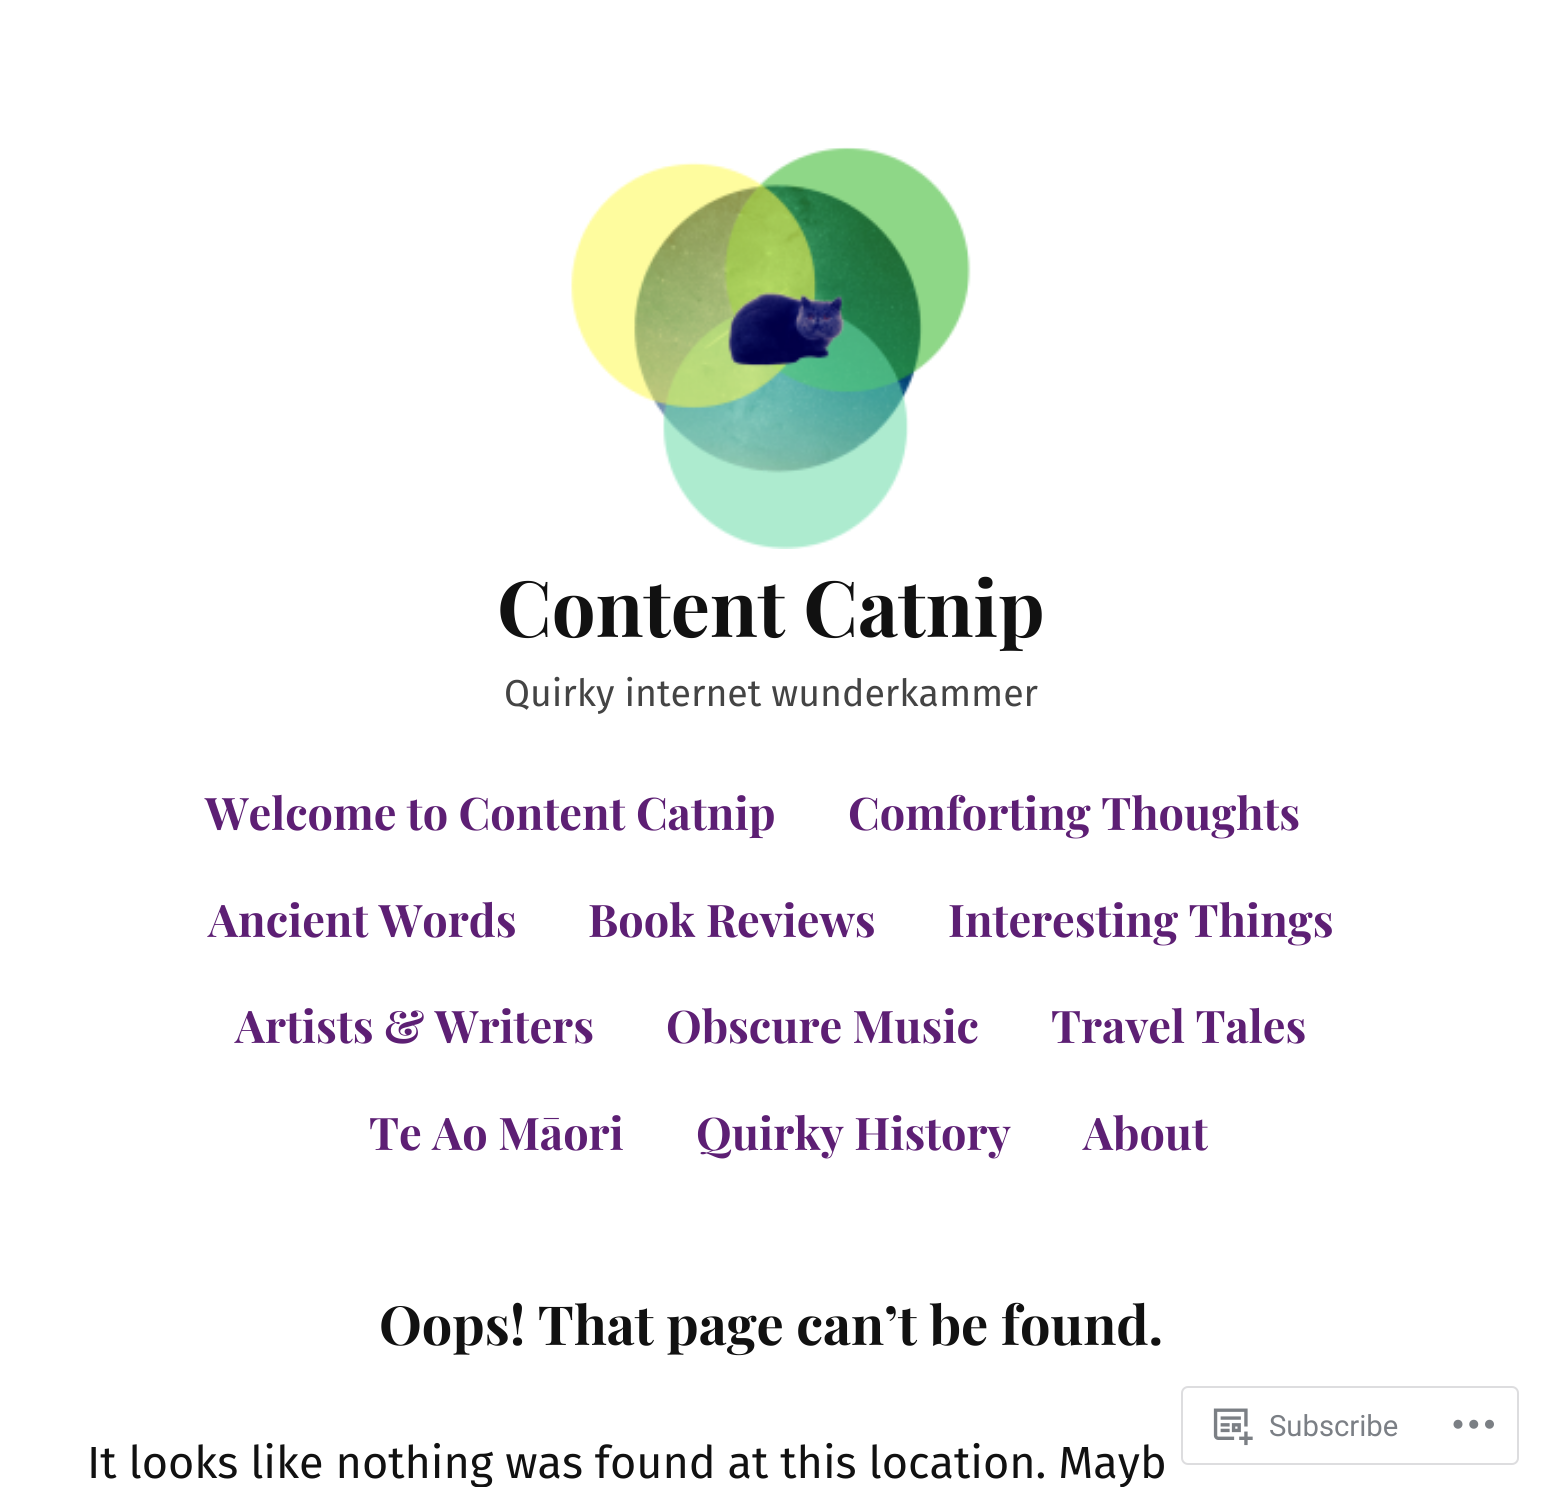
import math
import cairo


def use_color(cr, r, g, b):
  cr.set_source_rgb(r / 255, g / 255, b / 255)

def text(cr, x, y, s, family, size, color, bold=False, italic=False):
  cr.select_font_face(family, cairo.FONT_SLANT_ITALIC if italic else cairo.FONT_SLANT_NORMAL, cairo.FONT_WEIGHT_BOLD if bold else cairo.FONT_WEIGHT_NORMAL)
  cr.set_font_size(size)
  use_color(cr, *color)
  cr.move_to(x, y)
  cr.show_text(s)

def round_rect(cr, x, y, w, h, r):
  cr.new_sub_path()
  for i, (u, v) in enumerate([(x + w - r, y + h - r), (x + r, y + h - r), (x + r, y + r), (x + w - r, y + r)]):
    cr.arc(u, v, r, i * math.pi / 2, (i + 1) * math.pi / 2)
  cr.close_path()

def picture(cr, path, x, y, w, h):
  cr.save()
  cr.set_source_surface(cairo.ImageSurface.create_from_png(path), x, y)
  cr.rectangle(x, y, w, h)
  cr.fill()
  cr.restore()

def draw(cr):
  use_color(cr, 255, 255, 255)
  cr.paint()
  picture(cr, "img_01.png", 571, 147, 400, 402)
  round_rect(cr, 1182, 1387, 336, 77, 6)
  cr.set_source_rgba(0.863, 0.863, 0.871, 0.98)
  cr.stroke()
  picture(cr, "img_02.png", 1213, 1408, 40, 38)
  picture(cr, "img_03.png", 1453, 1419, 41, 10)
  text(cr, 497, 637, "Content Catnip", "Playfair Display", 77.75, (17, 17, 17), bold=True)
  text(cr, 504, 706, "Quirky internet wunderkammer", "Fira Sans", 37.5, (68, 68, 68))
  text(cr, 205, 830, "Welcome to Content Catnip", "Playfair Display", 45, (93, 31, 116), bold=True)
  text(cr, 848, 830, "Comforting Thoughts", "Playfair Display", 45, (93, 31, 116), bold=True)
  text(cr, 208, 937, "Ancient Words", "Playfair Display", 45, (93, 31, 116), bold=True)
  text(cr, 588, 937, "Book Reviews", "Playfair Display", 45, (93, 31, 116), bold=True)
  text(cr, 948, 937, "Interesting Things", "Playfair Display", 45, (93, 31, 116), bold=True)
  text(cr, 235, 1043, "Artists & Writers", "Playfair Display", 45, (93, 31, 116), bold=True)
  text(cr, 666, 1043, "Obscure Music", "Playfair Display", 45, (93, 31, 116), bold=True)
  text(cr, 1051, 1043, "Travel Tales", "Playfair Display", 45, (93, 31, 116), bold=True)
  text(cr, 369, 1150, "Te Ao Māori", "Playfair Display", 45, (93, 31, 116), bold=True)
  text(cr, 696, 1150, "Quirky History", "Playfair Display", 45, (93, 31, 116), bold=True)
  text(cr, 1083, 1150, "About", "Playfair Display", 45, (93, 31, 116), bold=True)
  text(cr, 379, 1345, "Oops! That page can’t be found.", "Playfair Display", 54, (17, 17, 17), bold=True)
  text(cr, 87, 1478, "It looks like nothing was found at this location. Mayb", "Fira Sans", 45, (17, 17, 17))
  text(cr, 1269, 1436, "Subscribe", "Roboto", 29.25, (123, 127, 133))


surface = cairo.ImageSurface(cairo.FORMAT_RGB24, 1541, 1487)
cr = cairo.Context(surface)
options = cairo.FontOptions()
options.set_hint_metrics(cairo.HINT_METRICS_OFF)
options.set_hint_style(cairo.HINT_STYLE_NONE)
cr.set_font_options(options)
cr.set_miter_limit(4)
draw(cr)
surface.write_to_png("out.png")
